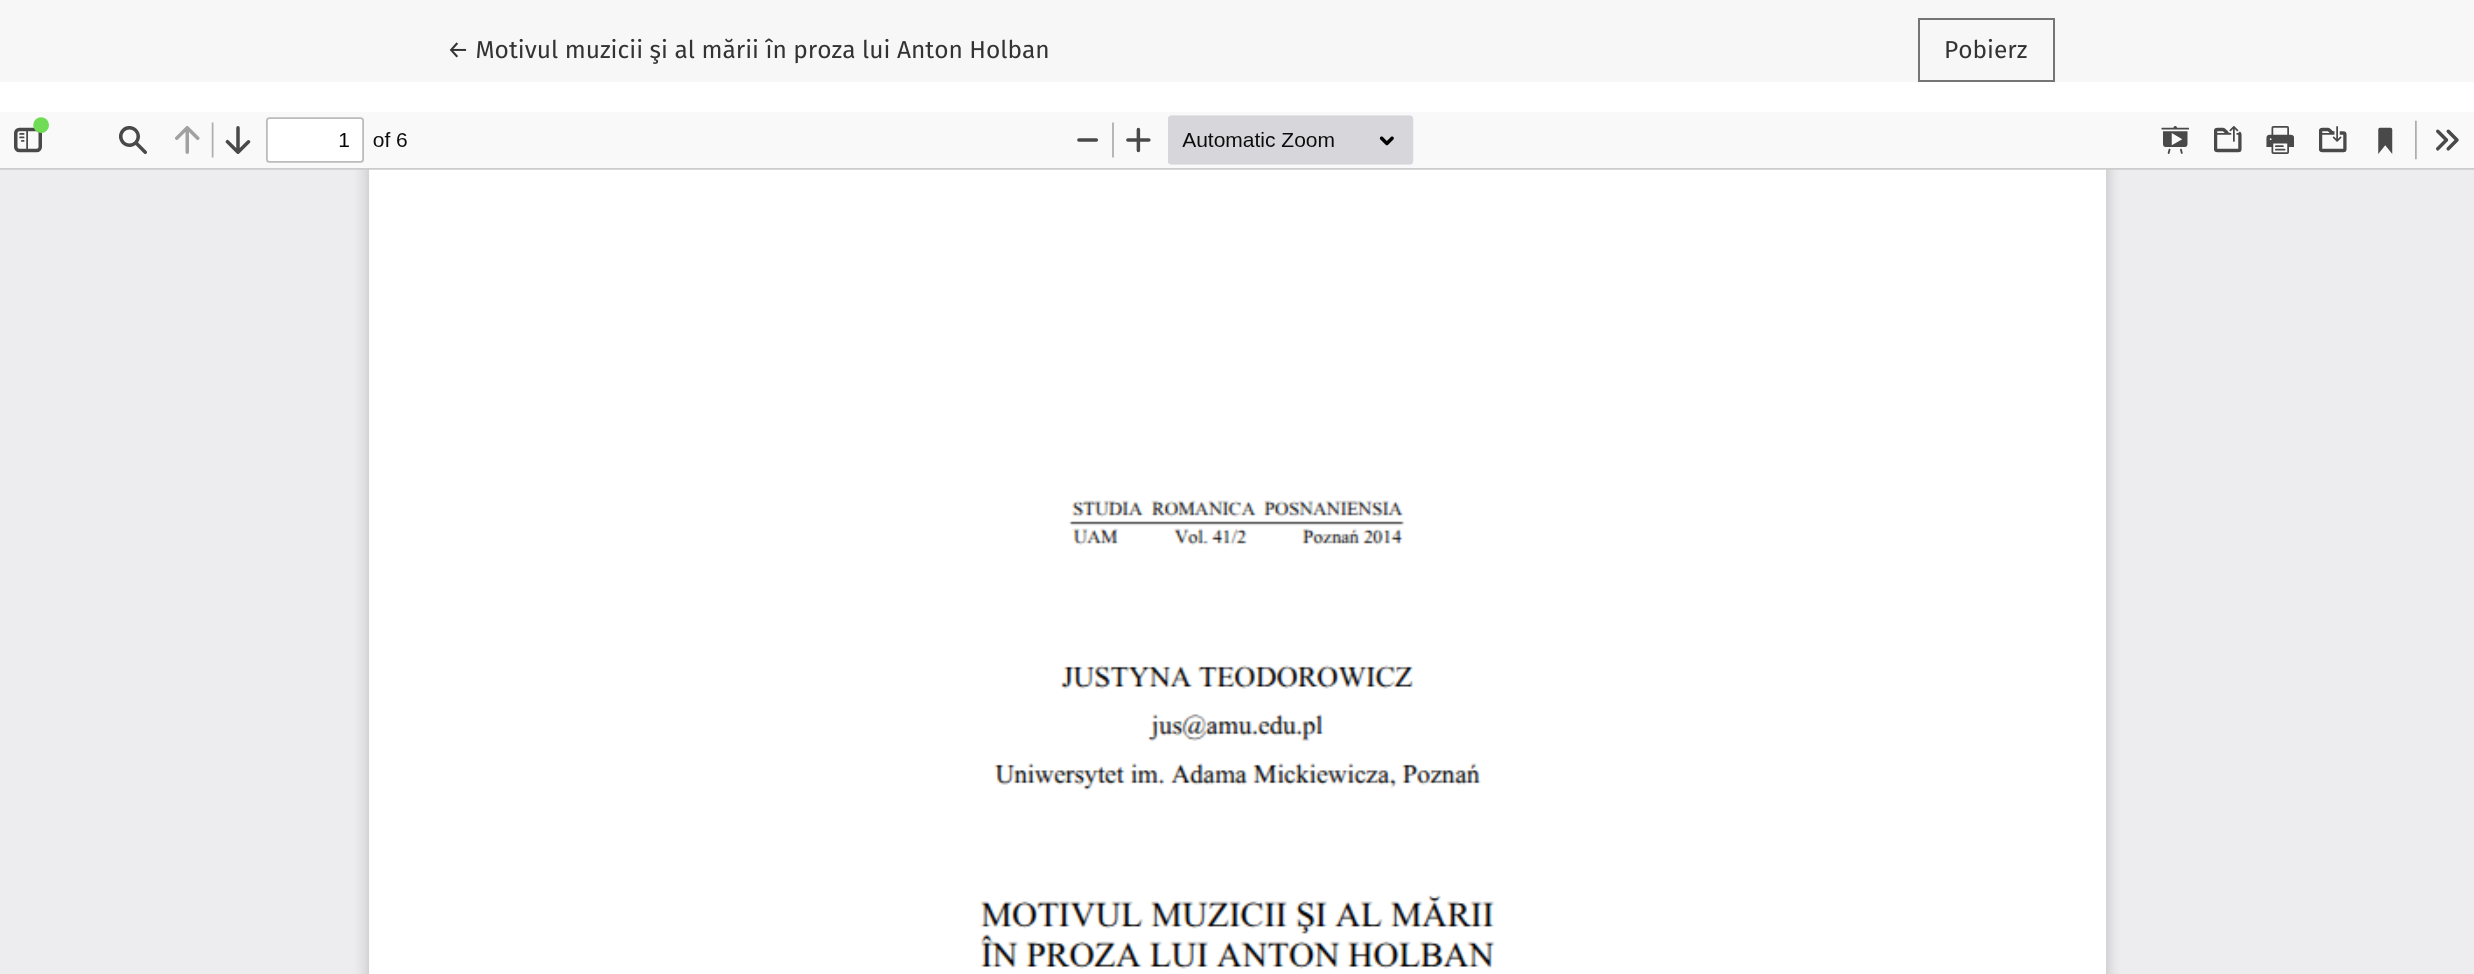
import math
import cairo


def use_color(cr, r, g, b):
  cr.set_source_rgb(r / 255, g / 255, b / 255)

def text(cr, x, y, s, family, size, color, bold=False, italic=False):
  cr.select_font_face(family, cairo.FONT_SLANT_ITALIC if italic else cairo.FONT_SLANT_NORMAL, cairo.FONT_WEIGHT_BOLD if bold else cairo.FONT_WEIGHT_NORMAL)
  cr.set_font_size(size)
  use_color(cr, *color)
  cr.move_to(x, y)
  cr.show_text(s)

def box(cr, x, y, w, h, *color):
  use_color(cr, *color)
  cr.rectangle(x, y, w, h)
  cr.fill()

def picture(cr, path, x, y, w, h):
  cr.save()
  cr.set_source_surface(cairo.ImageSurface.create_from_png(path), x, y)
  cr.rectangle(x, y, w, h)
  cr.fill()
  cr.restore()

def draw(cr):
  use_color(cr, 255, 255, 255)
  cr.paint()
  box(cr, 0, 0, 2474, 82, 247, 247, 247)
  cr.rectangle(1919, 19, 135, 62)
  use_color(cr, 117, 117, 117)
  cr.stroke()
  picture(cr, "img_01.png", 0, 112, 2474, 862)
  text(cr, 447, 58, "← Motivul muzicii şi al mării în proza lui Anton Holban", "Fira Sans", 24.5, (51, 51, 51))
  text(cr, 1944, 58, "Pobierz", "Fira Sans", 24.5, (51, 51, 51))


surface = cairo.ImageSurface(cairo.FORMAT_RGB24, 2474, 974)
cr = cairo.Context(surface)
options = cairo.FontOptions()
options.set_hint_metrics(cairo.HINT_METRICS_OFF)
options.set_hint_style(cairo.HINT_STYLE_NONE)
cr.set_font_options(options)
cr.set_miter_limit(4)
draw(cr)
surface.write_to_png("out.png")
